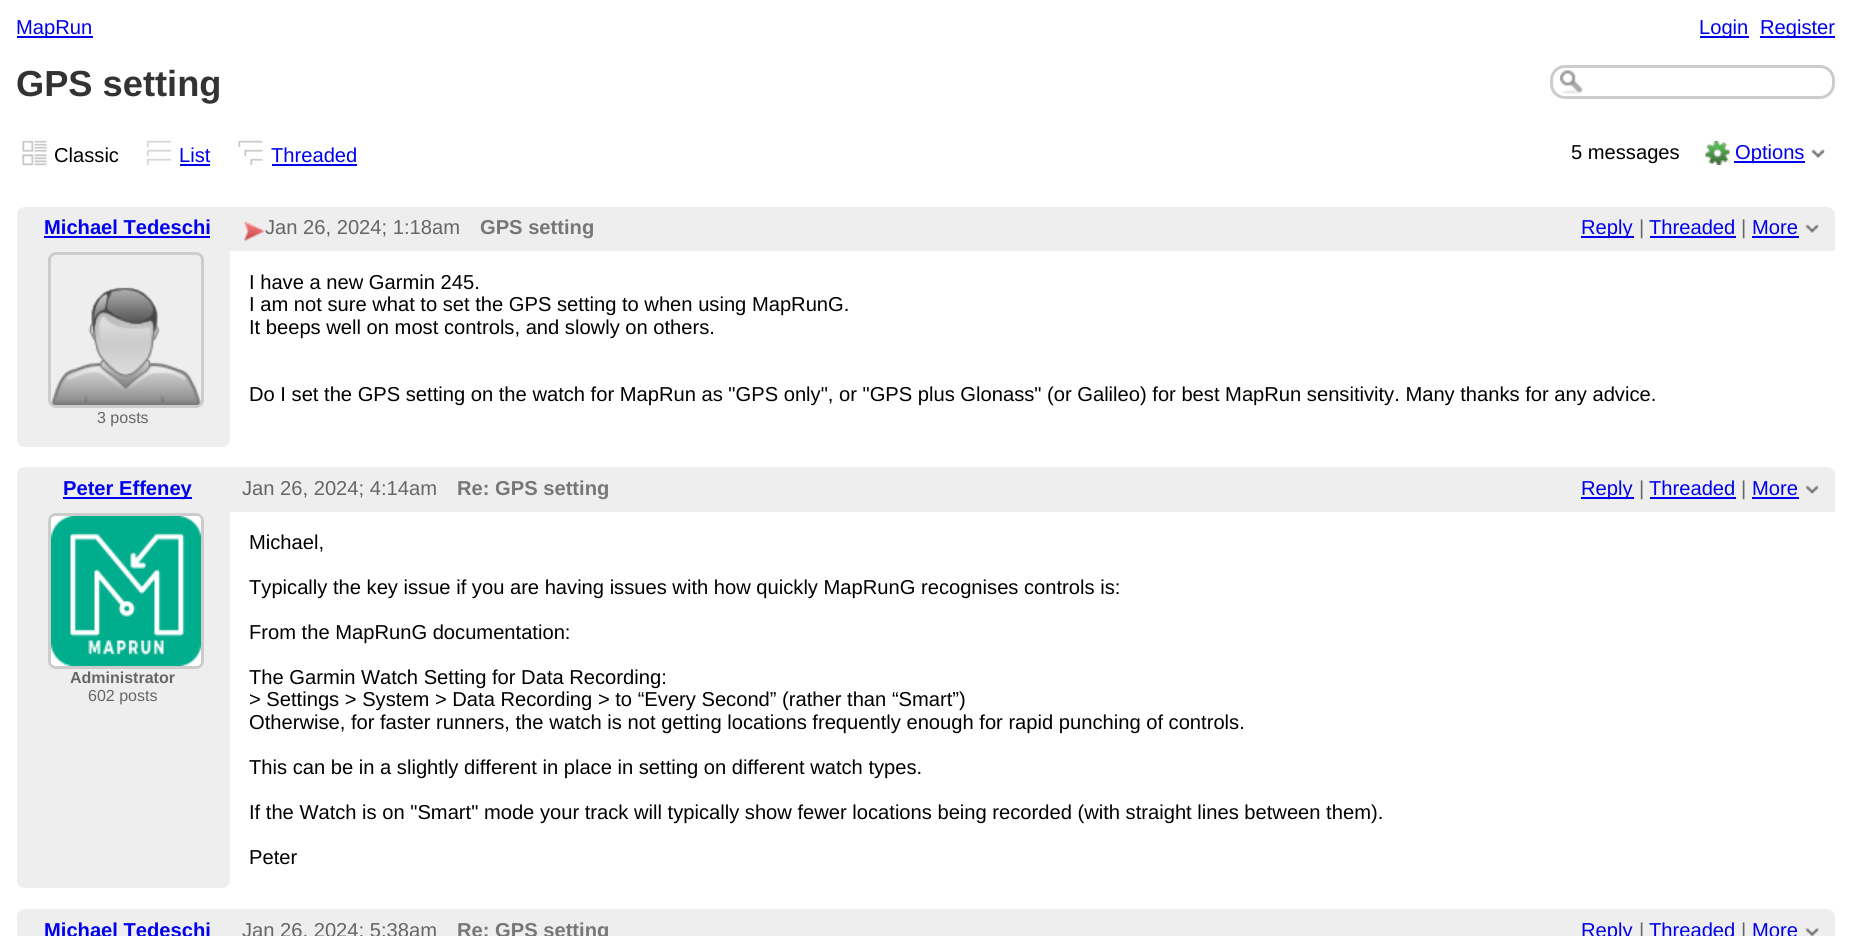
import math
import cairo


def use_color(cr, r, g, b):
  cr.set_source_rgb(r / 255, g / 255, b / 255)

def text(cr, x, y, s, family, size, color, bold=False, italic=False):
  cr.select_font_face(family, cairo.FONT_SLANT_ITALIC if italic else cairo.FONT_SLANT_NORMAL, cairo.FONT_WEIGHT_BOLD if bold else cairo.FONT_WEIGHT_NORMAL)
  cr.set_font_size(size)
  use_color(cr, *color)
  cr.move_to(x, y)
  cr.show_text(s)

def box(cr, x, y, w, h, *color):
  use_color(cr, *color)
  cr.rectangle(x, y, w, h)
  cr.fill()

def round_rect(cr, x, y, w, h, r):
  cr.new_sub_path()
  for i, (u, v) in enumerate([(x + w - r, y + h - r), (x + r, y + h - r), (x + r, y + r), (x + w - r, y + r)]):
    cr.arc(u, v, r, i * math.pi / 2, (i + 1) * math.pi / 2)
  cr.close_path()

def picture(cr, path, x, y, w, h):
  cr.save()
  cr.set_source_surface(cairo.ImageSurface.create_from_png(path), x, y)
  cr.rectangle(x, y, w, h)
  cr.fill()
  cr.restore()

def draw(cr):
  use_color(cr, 255, 255, 255)
  cr.paint()
  box(cr, 17, 36, 76, 2, 0, 0, 238)
  box(cr, 1700, 36, 49, 2, 0, 0, 238)
  box(cr, 1760, 36, 75, 2, 0, 0, 238)
  picture(cr, "img_01.png", 1560, 70, 23, 24)
  round_rect(cr, 1551.5, 66.5, 282, 31, 13.5)
  use_color(cr, 204, 204, 204)
  cr.set_line_width(3)
  cr.stroke()
  picture(cr, "img_02.png", 22, 140, 25, 26)
  picture(cr, "img_03.png", 146, 140, 26, 26)
  box(cr, 180, 164, 30, 2, 0, 0, 238)
  picture(cr, "img_04.png", 238, 140, 25, 26)
  box(cr, 272, 164, 85, 2, 0, 0, 238)
  picture(cr, "img_05.png", 1705, 141, 25, 24)
  box(cr, 1734, 161, 71, 2, 0, 0, 238)
  picture(cr, "img_06.png", 1811, 149, 14, 9)
  use_color(cr, 238, 238, 238)
  cr.new_path()
  cr.move_to(25, 207)
  cr.line_to(1827, 207)
  cr.curve_to(1831.5, 207, 1835, 210.5, 1835, 215)
  cr.line_to(1835, 251)
  cr.line_to(17, 251)
  cr.line_to(17, 215)
  cr.curve_to(17, 210.5, 20.5, 207, 25, 207)
  cr.close_path()
  cr.fill()
  box(cr, 44, 236, 166, 2, 0, 0, 238)
  picture(cr, "img_07.png", 244, 221, 21, 21)
  box(cr, 1581, 236, 53, 2, 0, 0, 238)
  box(cr, 1650, 236, 86, 2, 0, 0, 238)
  box(cr, 1752, 236, 47, 2, 0, 0, 238)
  picture(cr, "img_08.png", 1805, 224, 14, 10)
  use_color(cr, 238, 238, 238)
  cr.new_path()
  cr.move_to(17, 251)
  cr.line_to(230, 251)
  cr.line_to(230, 439)
  cr.curve_to(230, 443.5, 226.5, 447, 222, 447)
  cr.line_to(25, 447)
  cr.curve_to(20.5, 447, 17, 443.5, 17, 439)
  cr.close_path()
  cr.fill()
  round_rect(cr, 49.5, 253.5, 153, 153, 6.5)
  use_color(cr, 204, 204, 204)
  cr.stroke()
  picture(cr, "img_09.png", 51, 287, 150, 118)
  use_color(cr, 238, 238, 238)
  cr.new_path()
  cr.move_to(25, 467)
  cr.line_to(1827, 467)
  cr.curve_to(1831.5, 467, 1835, 470.5, 1835, 475)
  cr.line_to(1835, 512)
  cr.line_to(17, 512)
  cr.line_to(17, 475)
  cr.curve_to(17, 470.5, 20.5, 467, 25, 467)
  cr.close_path()
  cr.fill()
  box(cr, 63, 497, 129, 2, 0, 0, 238)
  box(cr, 1581, 497, 53, 2, 0, 0, 238)
  box(cr, 1650, 497, 86, 2, 0, 0, 238)
  box(cr, 1752, 497, 47, 2, 0, 0, 238)
  picture(cr, "img_08.png", 1805, 485, 14, 10)
  use_color(cr, 238, 238, 238)
  cr.new_path()
  cr.move_to(17, 512)
  cr.line_to(230, 512)
  cr.line_to(230, 880)
  cr.curve_to(230, 884.5, 226.5, 888, 222, 888)
  cr.line_to(25, 888)
  cr.curve_to(20.5, 888, 17, 884.5, 17, 880)
  cr.close_path()
  cr.fill()
  round_rect(cr, 49.5, 514.5, 153, 153, 6.5)
  use_color(cr, 204, 204, 204)
  cr.stroke()
  picture(cr, "img_10.png", 51, 516, 150, 150)
  use_color(cr, 238, 238, 238)
  cr.new_path()
  cr.move_to(25, 909)
  cr.line_to(1827, 909)
  cr.curve_to(1831.5, 909, 1835, 912.5, 1835, 917)
  cr.line_to(1835, 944)
  cr.line_to(17, 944)
  cr.line_to(17, 917)
  cr.curve_to(17, 912.5, 20.5, 909, 25, 909)
  cr.close_path()
  cr.fill()
  picture(cr, "img_11.png", 1805, 928, 14, 8)
  text(cr, 16, 34, "MapRun", "Liberation Sans", 20.15, (0, 0, 238))
  text(cr, 1699, 34, "Login", "Liberation Sans", 20.15, (0, 0, 238))
  text(cr, 1760, 34, "Register", "Liberation Sans", 20.15, (0, 0, 238))
  text(cr, 16, 96, "GPS setting", "Liberation Sans", 36.25, (51, 51, 51), bold=True)
  text(cr, 54, 162, "Classic", "Liberation Sans", 20.15, (0, 0, 0))
  text(cr, 179, 162, "List", "Liberation Sans", 20.15, (0, 0, 238))
  text(cr, 271, 162, "Threaded", "Liberation Sans", 20.15, (0, 0, 238))
  text(cr, 1571, 159, "5 messages", "Liberation Sans", 20.15, (0, 0, 0))
  text(cr, 1735, 159, "Options", "Liberation Sans", 20.15, (0, 0, 238))
  text(cr, 44, 234, "Michael Tedeschi", "Liberation Sans", 20.15, (0, 0, 238), bold=True)
  text(cr, 265, 234, "Jan 26, 2024; 1:18am", "Liberation Sans", 20.15, (102, 102, 102))
  text(cr, 480, 234, "GPS setting", "Liberation Sans", 20.15, (119, 119, 119), bold=True)
  text(cr, 1581, 234, "Reply", "Liberation Sans", 20.15, (0, 0, 238))
  text(cr, 1639, 234, "|", "Liberation Sans", 20.15, (102, 102, 102))
  text(cr, 1649, 234, "Threaded", "Liberation Sans", 20.15, (0, 0, 238))
  text(cr, 1741, 234, "|", "Liberation Sans", 20.15, (102, 102, 102))
  text(cr, 1752, 234, "More", "Liberation Sans", 20.15, (0, 0, 238))
  text(cr, 249, 289, "I have a new Garmin 245.", "Liberation Sans", 20.15, (0, 0, 0))
  text(cr, 249, 311, "I am not sure what to set the GPS setting to when using MapRunG.", "Liberation Sans", 20.15, (0, 0, 0))
  text(cr, 249, 334, "It beeps well on most controls, and slowly on others.", "Liberation Sans", 20.15, (0, 0, 0))
  text(cr, 249, 401, "Do I set the GPS setting on the watch for MapRun as \"GPS only\", or \"GPS plus Glonass\" (or Galileo) for best MapRun sensitivity. Many thanks for any advice.", "Liberation Sans", 20.15, (0, 0, 0))
  text(cr, 97, 423, "3 posts", "Liberation Sans", 16, (102, 102, 102))
  text(cr, 63, 495, "Peter Effeney", "Liberation Sans", 20.15, (0, 0, 238), bold=True)
  text(cr, 242, 495, "Jan 26, 2024; 4:14am", "Liberation Sans", 20.15, (102, 102, 102))
  text(cr, 457, 495, "Re: GPS setting", "Liberation Sans", 20.15, (119, 119, 119), bold=True)
  text(cr, 1581, 495, "Reply", "Liberation Sans", 20.15, (0, 0, 238))
  text(cr, 1639, 495, "|", "Liberation Sans", 20.15, (102, 102, 102))
  text(cr, 1649, 495, "Threaded", "Liberation Sans", 20.15, (0, 0, 238))
  text(cr, 1741, 495, "|", "Liberation Sans", 20.15, (102, 102, 102))
  text(cr, 1752, 495, "More", "Liberation Sans", 20.15, (0, 0, 238))
  text(cr, 70, 683, "Administrator", "Liberation Sans", 16, (102, 102, 102), bold=True)
  text(cr, 88, 701, "602 posts", "Liberation Sans", 16, (102, 102, 102))
  text(cr, 249, 549, "Michael,", "Liberation Sans", 20.15, (0, 0, 0))
  text(cr, 249, 594, "Typically the key issue if you are having issues with how quickly MapRunG recognises controls is:", "Liberation Sans", 20.15, (0, 0, 0))
  text(cr, 249, 639, "From the MapRunG documentation:", "Liberation Sans", 20.15, (0, 0, 0))
  text(cr, 249, 684, "The Garmin Watch Setting for Data Recording:", "Liberation Sans", 20.15, (0, 0, 0))
  text(cr, 249, 706, "> Settings > System > Data Recording > to “Every Second” (rather than “Smart”)", "Liberation Sans", 20.15, (0, 0, 0))
  text(cr, 249, 729, "Otherwise, for faster runners, the watch is not getting locations frequently enough for rapid punching of controls.", "Liberation Sans", 20.15, (0, 0, 0))
  text(cr, 249, 774, "This can be in a slightly different in place in setting on different watch types.", "Liberation Sans", 20.15, (0, 0, 0))
  text(cr, 249, 819, "If the Watch is on \"Smart\" mode your track will typically show fewer locations being recorded (with straight lines between them).", "Liberation Sans", 20.15, (0, 0, 0))
  text(cr, 249, 864, "Peter", "Liberation Sans", 20.15, (0, 0, 0))
  text(cr, 44, 937, "Michael Tedeschi", "Liberation Sans", 20.15, (0, 0, 238), bold=True)
  text(cr, 242, 937, "Jan 26, 2024; 5:38am", "Liberation Sans", 20.15, (102, 102, 102))
  text(cr, 457, 937, "Re: GPS setting", "Liberation Sans", 20.15, (119, 119, 119), bold=True)
  text(cr, 1581, 937, "Reply", "Liberation Sans", 20.15, (0, 0, 238))
  text(cr, 1639, 937, "|", "Liberation Sans", 20.15, (102, 102, 102))
  text(cr, 1649, 937, "Threaded", "Liberation Sans", 20.15, (0, 0, 238))
  text(cr, 1741, 937, "|", "Liberation Sans", 20.15, (102, 102, 102))
  text(cr, 1752, 937, "More", "Liberation Sans", 20.15, (0, 0, 238))


surface = cairo.ImageSurface(cairo.FORMAT_RGB24, 1851, 936)
cr = cairo.Context(surface)
options = cairo.FontOptions()
options.set_hint_metrics(cairo.HINT_METRICS_OFF)
options.set_hint_style(cairo.HINT_STYLE_NONE)
cr.set_font_options(options)
cr.set_miter_limit(4)
draw(cr)
surface.write_to_png("out.png")
